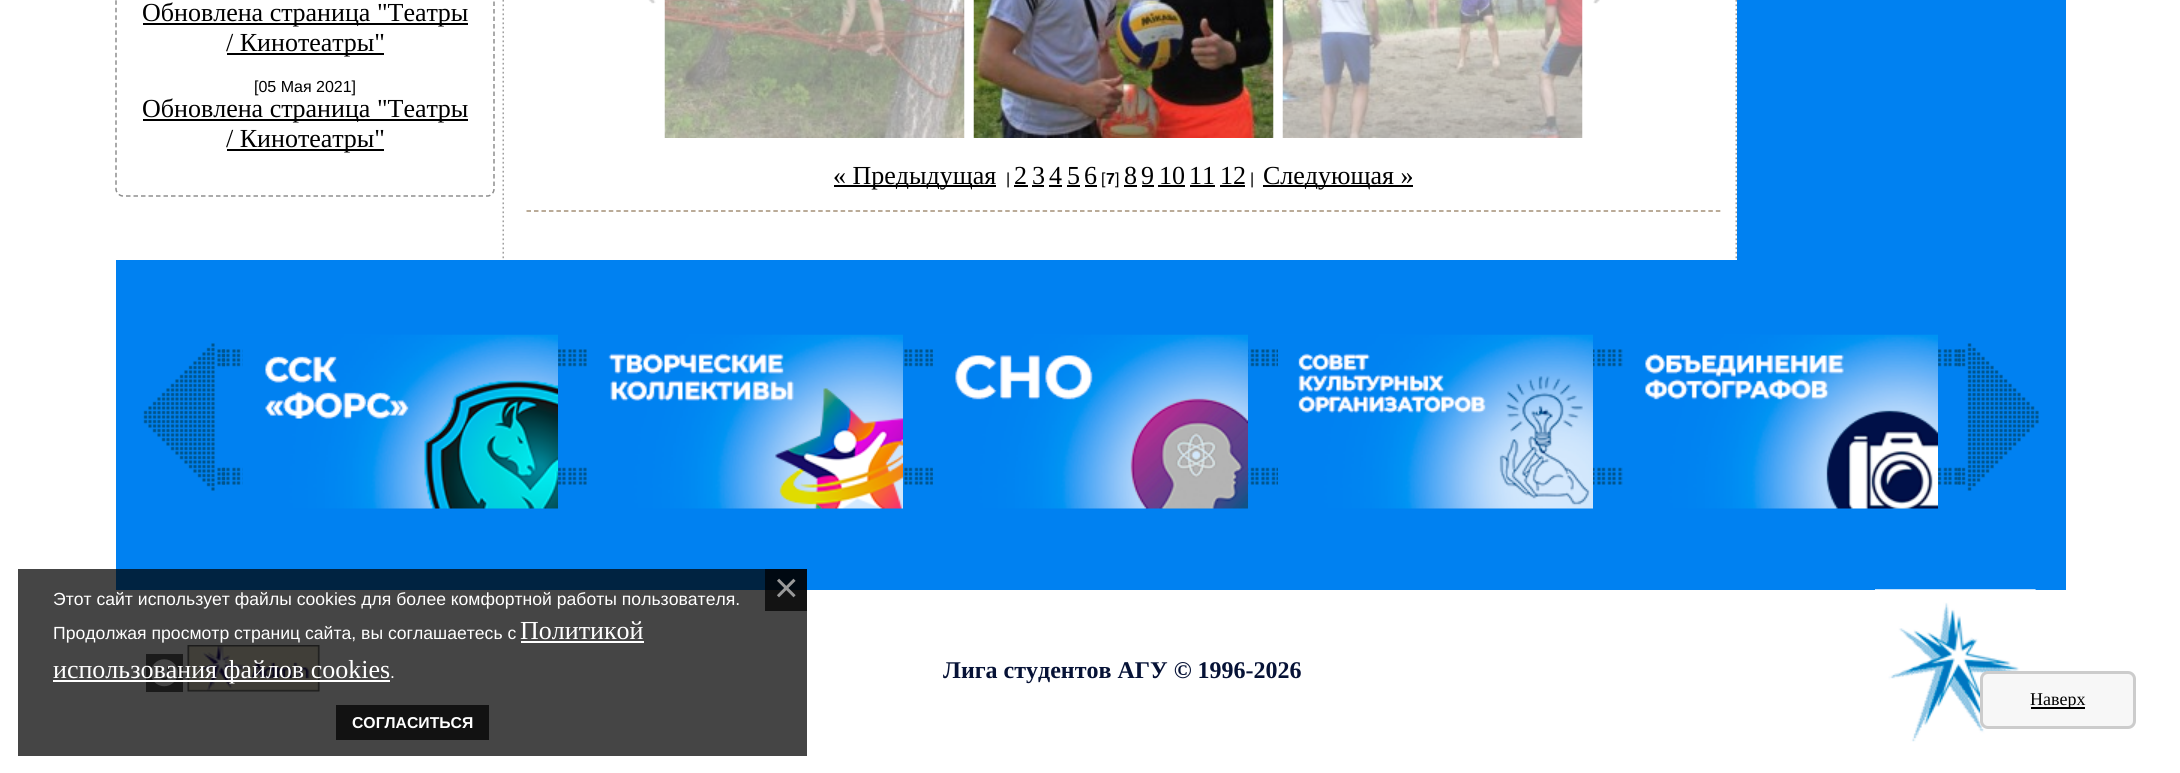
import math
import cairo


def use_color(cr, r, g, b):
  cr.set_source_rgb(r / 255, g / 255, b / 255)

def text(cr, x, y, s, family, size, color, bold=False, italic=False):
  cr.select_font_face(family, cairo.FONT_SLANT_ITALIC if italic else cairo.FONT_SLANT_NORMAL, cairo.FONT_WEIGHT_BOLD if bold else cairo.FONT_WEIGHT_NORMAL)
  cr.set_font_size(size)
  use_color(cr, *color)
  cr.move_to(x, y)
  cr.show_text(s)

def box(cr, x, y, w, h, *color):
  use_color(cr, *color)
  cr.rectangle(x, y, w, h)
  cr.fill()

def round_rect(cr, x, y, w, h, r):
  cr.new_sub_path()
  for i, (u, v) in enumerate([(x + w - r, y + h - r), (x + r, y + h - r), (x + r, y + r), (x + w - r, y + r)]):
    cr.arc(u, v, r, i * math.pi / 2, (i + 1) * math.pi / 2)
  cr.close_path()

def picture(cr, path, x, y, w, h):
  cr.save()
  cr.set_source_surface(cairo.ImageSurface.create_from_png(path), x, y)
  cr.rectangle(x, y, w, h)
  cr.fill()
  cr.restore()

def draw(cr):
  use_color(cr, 255, 255, 255)
  cr.paint()
  box(cr, 18, 569, 789, 187, 69, 69, 69)
  box(cr, 765, 590, 42, 21, 19, 19, 19)
  cr.new_path()
  cr.move_to(123, -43)
  cr.line_to(487.5, -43)
  cr.curve_to(491, -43, 494, -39.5, 494, -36)
  cr.line_to(494, 189)
  cr.curve_to(494, 192.5, 491, 196, 487.5, 196)
  cr.line_to(123, 196)
  cr.curve_to(119.5, 196, 116, 192.5, 116, 189)
  cr.line_to(116, -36)
  cr.curve_to(116, -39.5, 119.5, -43, 123, -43)
  cr.close_path()
  use_color(cr, 141, 141, 141)
  cr.set_line_width(1.5)
  cr.set_dash([4.5, 3])
  cr.stroke()
  box(cr, 143, 23, 325, 2, 0, 0, 0)
  box(cr, 227, 53, 157, 2, 0, 0, 0)
  box(cr, 143, 119, 325, 2, 0, 0, 0)
  box(cr, 227, 149, 157, 2, 0, 0, 0)
  picture(cr, "img_01.png", 502, 0, 2, 259)
  picture(cr, "img_01.png", 1735, 0, 2, 259)
  box(cr, 1737, 0, 329, 260, 0, 129, 241)
  picture(cr, "img_02.png", 648, 0, 8, 4)
  picture(cr, "img_03.png", 664, 0, 301, 138)
  picture(cr, "img_04.png", 973, 0, 301, 138)
  picture(cr, "img_05.png", 1282, 0, 301, 138)
  picture(cr, "img_06.png", 1593, 0, 7, 4)
  box(cr, 834, 185, 162, 2, 0, 0, 0)
  box(cr, 1014, 185, 14, 2, 0, 0, 0)
  box(cr, 1032, 185, 12, 2, 0, 0, 0)
  box(cr, 1049, 185, 13, 2, 0, 0, 0)
  box(cr, 1067, 185, 13, 2, 0, 0, 0)
  box(cr, 1085, 185, 12, 2, 0, 0, 0)
  box(cr, 1124, 185, 13, 2, 0, 0, 0)
  box(cr, 1142, 185, 12, 2, 0, 0, 0)
  box(cr, 1158, 185, 27, 2, 0, 0, 0)
  box(cr, 1190, 185, 25, 2, 0, 0, 0)
  box(cr, 1220, 185, 25, 2, 0, 0, 0)
  box(cr, 1263, 185, 150, 2, 0, 0, 0)
  cr.new_path()
  cr.move_to(526.5, 211)
  cr.line_to(1720.5, 211)
  use_color(cr, 164, 143, 118)
  cr.set_dash([4.5, 2.98])
  cr.stroke()
  box(cr, 116, 260, 1950, 330, 0, 129, 241)
  box(cr, 116, 569, 649, 21, 0, 35, 65)
  box(cr, 765, 569, 42, 21, 0, 9, 18)
  picture(cr, "img_07.png", 221, 349, 1740, 136)
  picture(cr, "img_08.png", 143, 343, 82, 148)
  picture(cr, "img_09.png", 243, 334, 315, 175)
  picture(cr, "img_10.png", 589, 334, 314, 175)
  picture(cr, "img_11.png", 933, 334, 315, 175)
  picture(cr, "img_12.png", 1278, 334, 315, 175)
  picture(cr, "img_13.png", 1623, 334, 315, 175)
  picture(cr, "img_14.png", 1957, 343, 82, 148)
  picture(cr, "img_15.png", 146, 654, 37, 38)
  picture(cr, "img_16.png", 187, 645, 133, 47)
  picture(cr, "img_17.png", 1875, 589, 161, 153)
  picture(cr, "img_18.png", 1875, 589, 161, 1)
  use_color(cr, 247, 247, 247)
  round_rect(cr, 1981.5, 672.5, 153, 55, 6.5)
  cr.fill_preserve()
  use_color(cr, 204, 204, 204)
  cr.set_line_width(3)
  cr.set_dash([])
  cr.stroke()
  box(cr, 2031, 707, 54, 2, 0, 0, 0)
  box(cr, 336, 705, 153, 35, 18, 18, 18)
  box(cr, 521, 641, 123, 2, 255, 255, 255)
  box(cr, 53, 680, 337, 2, 255, 255, 255)
  text(cr, 142, 21, "Обновлена страница \"Театры", "Liberation Serif", 26, (0, 0, 0))
  text(cr, 226, 51, "/ Кинотеатры\"", "Liberation Serif", 26, (0, 0, 0))
  text(cr, 254, 92, "[05 Мая 2021]", "Liberation Sans", 16, (0, 0, 0))
  text(cr, 142, 117, "Обновлена страница \"Театры", "Liberation Serif", 26, (0, 0, 0))
  text(cr, 226, 147, "/ Кинотеатры\"", "Liberation Serif", 26, (0, 0, 0))
  text(cr, 833, 184, "« Предыдущая", "Liberation Serif", 26, (0, 0, 0))
  text(cr, 1006, 184, "|", "Liberation Sans", 16, (0, 0, 0))
  text(cr, 1014, 184, "2", "Liberation Serif", 26, (0, 0, 0))
  text(cr, 1032, 184, "3", "Liberation Serif", 26, (0, 0, 0))
  text(cr, 1049, 184, "4", "Liberation Serif", 26, (0, 0, 0))
  text(cr, 1067, 184, "5", "Liberation Serif", 26, (0, 0, 0))
  text(cr, 1084, 184, "6", "Liberation Serif", 26, (0, 0, 0))
  text(cr, 1101, 184, "[", "Liberation Sans", 16, (0, 0, 0))
  text(cr, 1106, 184, "7", "Liberation Sans", 16, (0, 0, 0), bold=True)
  text(cr, 1115, 184, "]", "Liberation Sans", 16, (0, 0, 0))
  text(cr, 1124, 184, "8", "Liberation Serif", 26, (0, 0, 0))
  text(cr, 1141, 184, "9", "Liberation Serif", 26, (0, 0, 0))
  text(cr, 1159, 184, "10", "Liberation Serif", 26, (0, 0, 0))
  text(cr, 1189, 184, "11", "Liberation Serif", 26, (0, 0, 0))
  text(cr, 1220, 184, "12", "Liberation Serif", 26, (0, 0, 0))
  text(cr, 1250, 184, "|", "Liberation Sans", 16, (0, 0, 0))
  text(cr, 1263, 184, "Следующая »", "Liberation Serif", 26, (0, 0, 0))
  text(cr, 943, 678, "Лига студентов АГУ © 1996-2026", "Liberation Serif", 24, (6, 18, 54), bold=True)
  text(cr, 2030, 705, "Наверх", "Liberation Serif", 18, (0, 0, 0))
  text(cr, 774, 602, "×", "Liberation Sans", 42, (153, 153, 153))
  text(cr, 352, 728, "СОГЛАСИТЬСЯ", "Liberation Sans", 15.75, (255, 255, 255), bold=True)
  text(cr, 53, 605, "Этот сайт использует файлы cookies для более комфортной работы пользователя.", "Liberation Sans", 17.6, (255, 255, 255))
  text(cr, 53, 639, "Продолжая просмотр страниц сайта, вы соглашаетесь с", "Liberation Sans", 17.6, (255, 255, 255))
  text(cr, 520, 639, "Политикой", "Liberation Serif", 26, (255, 255, 255))
  text(cr, 53, 678, "использования файлов cookies", "Liberation Serif", 26, (255, 255, 255))
  text(cr, 390, 678, ".", "Liberation Sans", 17.6, (255, 255, 255))


surface = cairo.ImageSurface(cairo.FORMAT_RGB24, 2180, 773)
cr = cairo.Context(surface)
options = cairo.FontOptions()
options.set_hint_metrics(cairo.HINT_METRICS_OFF)
options.set_hint_style(cairo.HINT_STYLE_NONE)
cr.set_font_options(options)
cr.set_miter_limit(4)
draw(cr)
surface.write_to_png("out.png")
